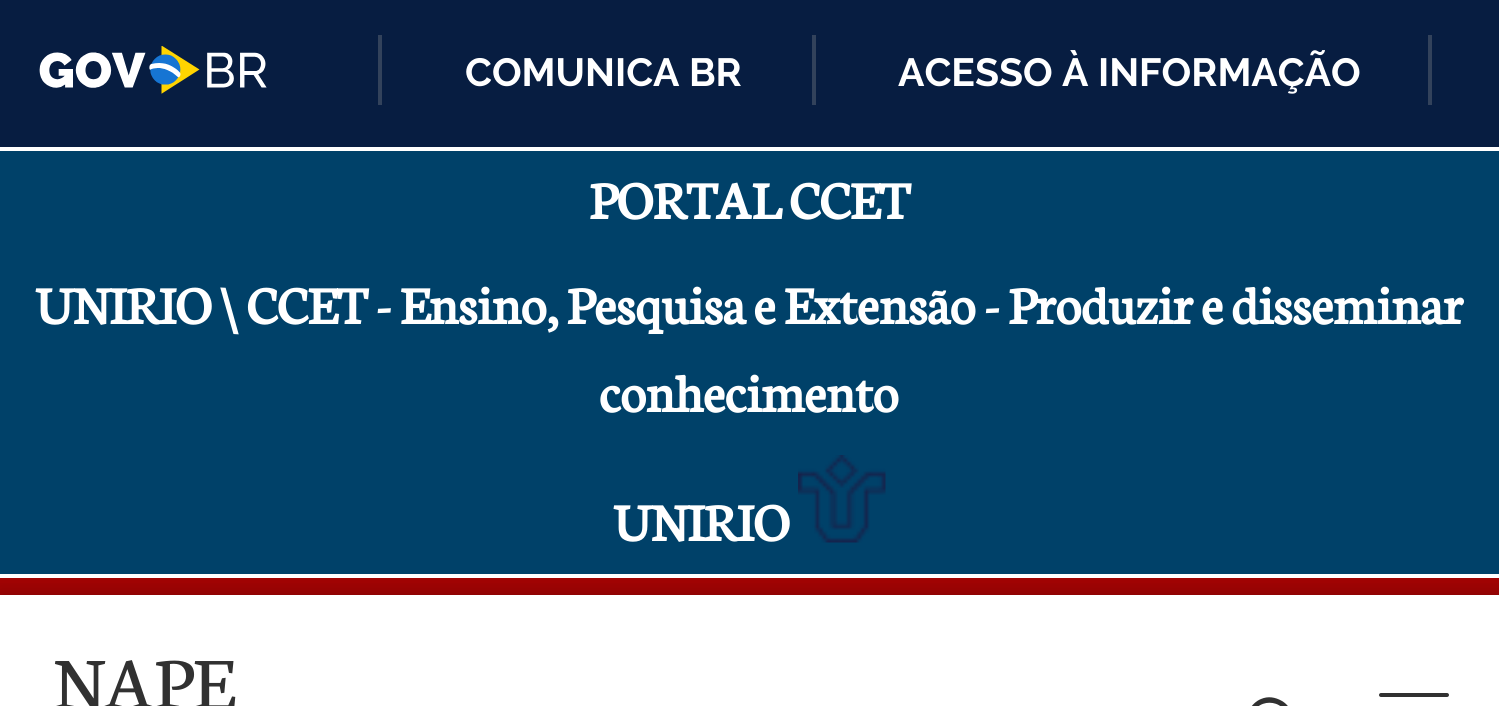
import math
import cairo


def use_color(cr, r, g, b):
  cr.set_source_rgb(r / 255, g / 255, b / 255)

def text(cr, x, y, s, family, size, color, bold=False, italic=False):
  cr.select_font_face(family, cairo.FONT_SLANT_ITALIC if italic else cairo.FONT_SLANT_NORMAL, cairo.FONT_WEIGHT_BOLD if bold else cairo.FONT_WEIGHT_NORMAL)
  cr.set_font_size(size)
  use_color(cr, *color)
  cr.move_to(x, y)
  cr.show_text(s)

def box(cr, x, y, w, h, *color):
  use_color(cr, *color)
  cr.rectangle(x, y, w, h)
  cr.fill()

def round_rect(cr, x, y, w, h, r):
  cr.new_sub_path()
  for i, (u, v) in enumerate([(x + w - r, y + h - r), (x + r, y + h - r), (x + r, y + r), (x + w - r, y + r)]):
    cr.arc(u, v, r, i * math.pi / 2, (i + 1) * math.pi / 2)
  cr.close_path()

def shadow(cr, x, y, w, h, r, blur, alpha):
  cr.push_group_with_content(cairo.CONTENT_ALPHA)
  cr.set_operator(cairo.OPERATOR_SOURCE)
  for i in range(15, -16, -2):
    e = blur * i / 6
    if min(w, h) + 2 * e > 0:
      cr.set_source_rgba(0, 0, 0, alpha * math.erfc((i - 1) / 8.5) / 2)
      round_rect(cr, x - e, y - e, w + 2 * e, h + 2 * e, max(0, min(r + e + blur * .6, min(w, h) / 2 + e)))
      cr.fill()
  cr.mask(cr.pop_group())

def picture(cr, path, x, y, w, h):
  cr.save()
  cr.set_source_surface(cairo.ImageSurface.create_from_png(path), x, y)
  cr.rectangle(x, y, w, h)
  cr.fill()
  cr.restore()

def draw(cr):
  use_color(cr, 255, 255, 255)
  cr.paint()
  box(cr, 0, 0, 1499, 147, 7, 29, 65)
  picture(cr, "img_01.png", 39, 46, 228, 48)
  box(cr, 378, 35, 4, 70, 50, 66, 91)
  box(cr, 812, 35, 4, 70, 50, 66, 91)
  box(cr, 1428, 35, 4, 70, 50, 66, 91)
  box(cr, 0, 151, 1499, 423, 0, 65, 105)
  picture(cr, "img_02.png", 798, 455, 88, 88)
  box(cr, 0, 578, 1499, 17, 160, 3, 3)
  cr.save()
  cr.rectangle(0, 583, 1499, 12)
  cr.clip()
  use_color(cr, 0, 0, 0)
  shadow(cr, 0, 595, 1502, 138, 0, 9, 0.2)
  cr.restore()
  use_color(cr, 49, 49, 49)
  round_rect(cr, 1379, 693, 70, 4, 2)
  cr.fill()
  cr.new_path()
  cr.move_to(1299, 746)
  cr.line_to(1288, 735)
  cr.curve_to(1296, 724, 1294, 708, 1282, 701)
  cr.curve_to(1275, 697, 1268, 696, 1261, 699)
  cr.curve_to(1256, 701, 1252, 705, 1249, 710)
  cr.curve_to(1238, 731, 1264, 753, 1284, 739)
  cr.line_to(1295, 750)
  cr.close_path()
  cr.move_to(1252, 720)
  cr.curve_to(1252, 697, 1287, 697, 1287, 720)
  cr.curve_to(1287, 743, 1252, 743, 1252, 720)
  cr.close_path()
  cr.fill()
  text(cr, 465, 86, "COMUNICA BR", "Raleway", 39.25, (255, 255, 255), bold=True)
  text(cr, 898, 86, "ACESSO À INFORMAÇÃO", "Raleway", 39.25, (255, 255, 255), bold=True)
  text(cr, 589, 219, "PORTAL CCET", "Neuton", 56, (255, 255, 255), bold=True)
  text(cr, 35, 324, "UNIRIO \\ CCET - Ensino, Pesquisa e Extensão - Produzir e disseminar", "Neuton", 56, (255, 255, 255), bold=True)
  text(cr, 599, 412, "conhecimento", "Neuton", 56, (255, 255, 255), bold=True)
  text(cr, 613, 541, "UNIRIO", "Neuton", 56, (255, 255, 255), bold=True)
  text(cr, 53, 709, "NAPE", "Neuton", 79, (49, 49, 49))


surface = cairo.ImageSurface(cairo.FORMAT_RGB24, 1499, 706)
cr = cairo.Context(surface)
options = cairo.FontOptions()
options.set_hint_metrics(cairo.HINT_METRICS_OFF)
options.set_hint_style(cairo.HINT_STYLE_NONE)
cr.set_font_options(options)
cr.set_miter_limit(4)
draw(cr)
surface.write_to_png("out.png")
